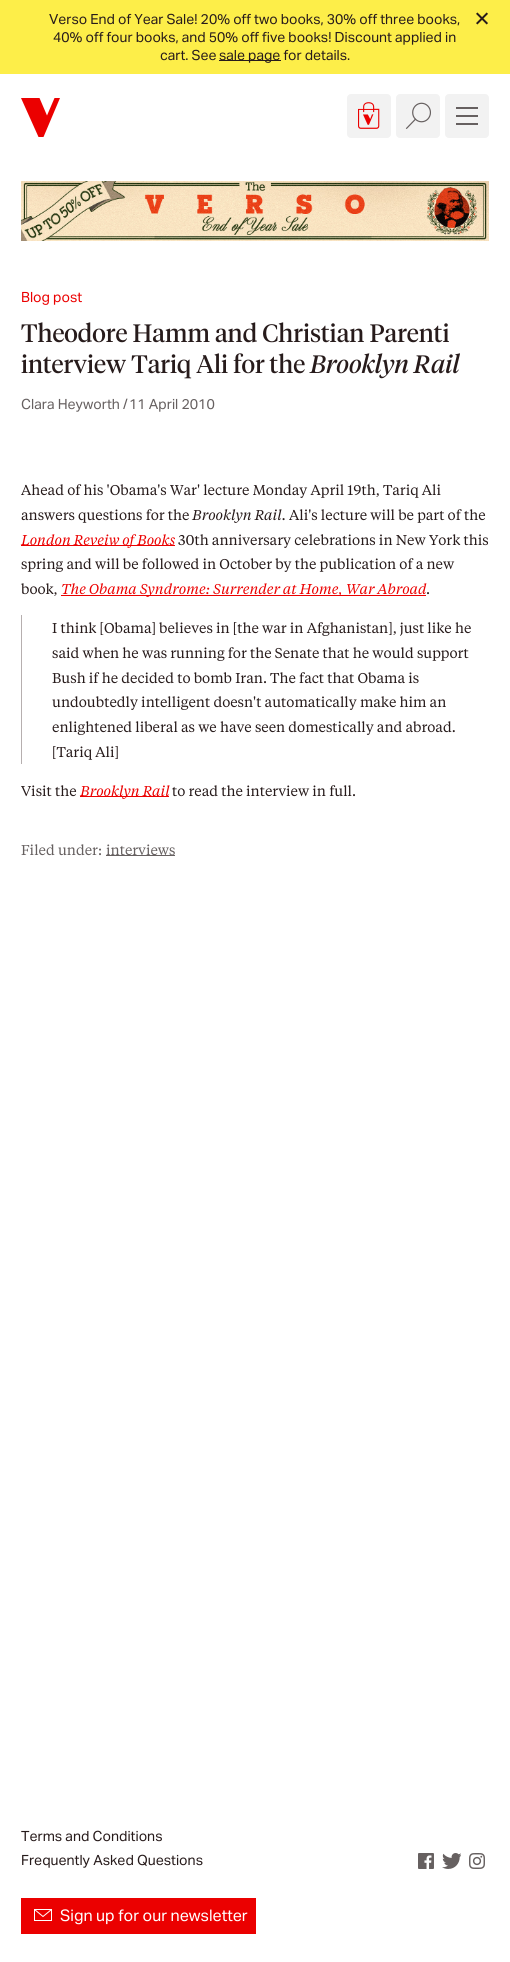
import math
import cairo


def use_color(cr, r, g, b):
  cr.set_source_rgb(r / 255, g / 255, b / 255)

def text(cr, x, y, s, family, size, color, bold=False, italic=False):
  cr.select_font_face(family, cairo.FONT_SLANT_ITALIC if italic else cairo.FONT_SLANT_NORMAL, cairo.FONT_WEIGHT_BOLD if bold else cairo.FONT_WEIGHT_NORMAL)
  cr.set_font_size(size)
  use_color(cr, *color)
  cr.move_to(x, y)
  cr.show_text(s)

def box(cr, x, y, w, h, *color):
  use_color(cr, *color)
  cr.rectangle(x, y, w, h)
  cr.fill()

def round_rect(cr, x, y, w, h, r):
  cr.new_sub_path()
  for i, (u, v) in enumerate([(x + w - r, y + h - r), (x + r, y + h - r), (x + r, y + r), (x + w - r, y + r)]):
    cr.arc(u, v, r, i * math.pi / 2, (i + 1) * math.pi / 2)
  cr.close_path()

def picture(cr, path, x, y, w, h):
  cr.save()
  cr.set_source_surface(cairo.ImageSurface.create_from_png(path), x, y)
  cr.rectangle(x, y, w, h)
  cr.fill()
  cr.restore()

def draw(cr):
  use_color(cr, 255, 255, 255)
  cr.paint()
  box(cr, 0, 0, 510, 74, 253, 238, 73)
  box(cr, 219, 60, 62, 1, 39, 27, 27)
  picture(cr, "img_01.png", 476, 12, 12, 13)
  use_color(cr, 235, 0, 0)
  cr.new_path()
  cr.move_to(21, 98)
  cr.line_to(39.5, 98)
  cr.line_to(47, 115.5)
  cr.line_to(54.5, 98)
  cr.line_to(60, 98)
  cr.line_to(43.5, 137)
  cr.line_to(38.5, 137)
  cr.close_path()
  cr.fill()
  use_color(cr, 242, 242, 242)
  round_rect(cr, 347, 94, 44, 44, 4)
  cr.fill()
  picture(cr, "img_02.png", 358, 102, 22, 27)
  round_rect(cr, 396, 94, 44, 44, 4)
  cr.fill()
  picture(cr, "img_03.png", 405, 102, 26, 27)
  round_rect(cr, 445, 94, 44, 44, 4)
  cr.fill()
  box(cr, 456, 107, 22, 2, 102, 96, 96)
  box(cr, 456, 115, 22, 2, 102, 96, 96)
  box(cr, 456, 123, 22, 2, 102, 96, 96)
  picture(cr, "img_04.png", 21, 181, 468, 60)
  box(cr, 21, 545, 154, 1, 235, 0, 0)
  box(cr, 61, 595, 365, 1, 235, 0, 0)
  box(cr, 21, 615, 1, 149, 182, 175, 175)
  box(cr, 80, 796, 89, 1, 235, 0, 0)
  box(cr, 106, 855, 69, 1, 102, 96, 96)
  picture(cr, "img_05.png", 418, 1853, 16, 16)
  picture(cr, "img_06.png", 442, 1853, 19, 16)
  picture(cr, "img_07.png", 469, 1853, 16, 16)
  box(cr, 21, 1898, 235, 36, 235, 0, 0)
  picture(cr, "img_08.png", 34, 1909, 18, 12)
  text(cr, 49, 24, "Verso End of Year Sale! 20% off two books, 30% off three books,", "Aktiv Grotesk", 14, (39, 27, 27))
  text(cr, 53, 42, "40% off four books, and 50% off five books! Discount applied in", "Aktiv Grotesk", 14, (39, 27, 27))
  text(cr, 160, 60, "cart. See", "Aktiv Grotesk", 14, (39, 27, 27))
  text(cr, 219, 60, "sale page for details.", "Aktiv Grotesk", 14, (39, 27, 27))
  text(cr, 21, 302, "Blog post", "Aktiv Grotesk", 14.1, (235, 0, 0))
  text(cr, 21, 342, "Theodore Hamm and Christian Parenti", "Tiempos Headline", 25.1, (39, 27, 27))
  text(cr, 21, 373, "interview Tariq Ali for the", "Tiempos Headline", 25.1, (39, 27, 27))
  text(cr, 310, 373, "Brooklyn Rail", "Tiempos Headline", 25.1, (39, 27, 27), italic=True)
  text(cr, 21, 409, "Clara Heyworth /", "Aktiv Grotesk", 14.1, (102, 96, 96))
  text(cr, 129, 409, "11 April 2010", "Aktiv Grotesk", 14.1, (102, 96, 96))
  text(cr, 21, 495, "Ahead of his 'Obama's War' lecture Monday April 19th, Tariq Ali", "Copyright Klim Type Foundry", 14.15, (39, 27, 27))
  text(cr, 21, 520, "answers questions for the", "Copyright Klim Type Foundry", 14.15, (39, 27, 27))
  text(cr, 192, 520, "Brooklyn Rail.", "Copyright Klim Type Foundry", 14.15, (39, 27, 27), italic=True)
  text(cr, 289, 520, "Ali's lecture will be part of the", "Copyright Klim Type Foundry", 14.15, (39, 27, 27))
  text(cr, 21, 545, "London Reveiw of Books", "Copyright Klim Type Foundry", 14.15, (235, 0, 0), italic=True)
  text(cr, 178, 545, "30th anniversary celebrations in New York this", "Copyright Klim Type Foundry", 14.15, (39, 27, 27))
  text(cr, 21, 569, "spring and will be followed in October by the publication of a new", "Copyright Klim Type Foundry", 14.15, (39, 27, 27))
  text(cr, 21, 594, "book,", "Copyright Klim Type Foundry", 14.15, (39, 27, 27))
  text(cr, 61, 594, "The Obama Syndrome: Surrender at Home, War Abroad", "Copyright Klim Type Foundry", 14.15, (235, 0, 0), italic=True)
  text(cr, 426, 594, ".", "Copyright Klim Type Foundry", 14.15, (39, 27, 27))
  text(cr, 52, 633, "I think [Obama] believes in [the war in Afghanistan], just like he", "Copyright Klim Type Foundry", 14.15, (39, 27, 27))
  text(cr, 52, 658, "said when he was running for the Senate that he would support", "Copyright Klim Type Foundry", 14.15, (39, 27, 27))
  text(cr, 52, 683, "Bush if he decided to bomb Iran. The fact that Obama is", "Copyright Klim Type Foundry", 14.15, (39, 27, 27))
  text(cr, 52, 707, "undoubtedly intelligent doesn't automatically make him an", "Copyright Klim Type Foundry", 14.15, (39, 27, 27))
  text(cr, 52, 732, "enlightened liberal as we have seen domestically and abroad.", "Copyright Klim Type Foundry", 14.15, (39, 27, 27))
  text(cr, 52, 757, "[Tariq Ali]", "Copyright Klim Type Foundry", 14.15, (39, 27, 27))
  text(cr, 21, 796, "Visit the", "Copyright Klim Type Foundry", 14.15, (39, 27, 27))
  text(cr, 80, 796, "Brooklyn Rail", "Copyright Klim Type Foundry", 14.15, (235, 0, 0), italic=True)
  text(cr, 172, 796, "to read the interview in full.", "Copyright Klim Type Foundry", 14.15, (39, 27, 27))
  text(cr, 21, 855, "Filed under:", "Copyright Klim Type Foundry", 14.15, (102, 96, 96))
  text(cr, 106, 855, "interviews", "Copyright Klim Type Foundry", 14.15, (102, 96, 96))
  text(cr, 21, 1841, "Terms and Conditions", "Aktiv Grotesk", 14.1, (39, 27, 27))
  text(cr, 21, 1865, "Frequently Asked Questions", "Aktiv Grotesk", 14.1, (39, 27, 27))
  text(cr, 60, 1921, "Sign up for our newsletter", "Aktiv Grotesk", 16, (255, 255, 255))


surface = cairo.ImageSurface(cairo.FORMAT_RGB24, 510, 1962)
cr = cairo.Context(surface)
options = cairo.FontOptions()
options.set_hint_metrics(cairo.HINT_METRICS_OFF)
options.set_hint_style(cairo.HINT_STYLE_NONE)
cr.set_font_options(options)
cr.set_miter_limit(4)
draw(cr)
surface.write_to_png("out.png")
